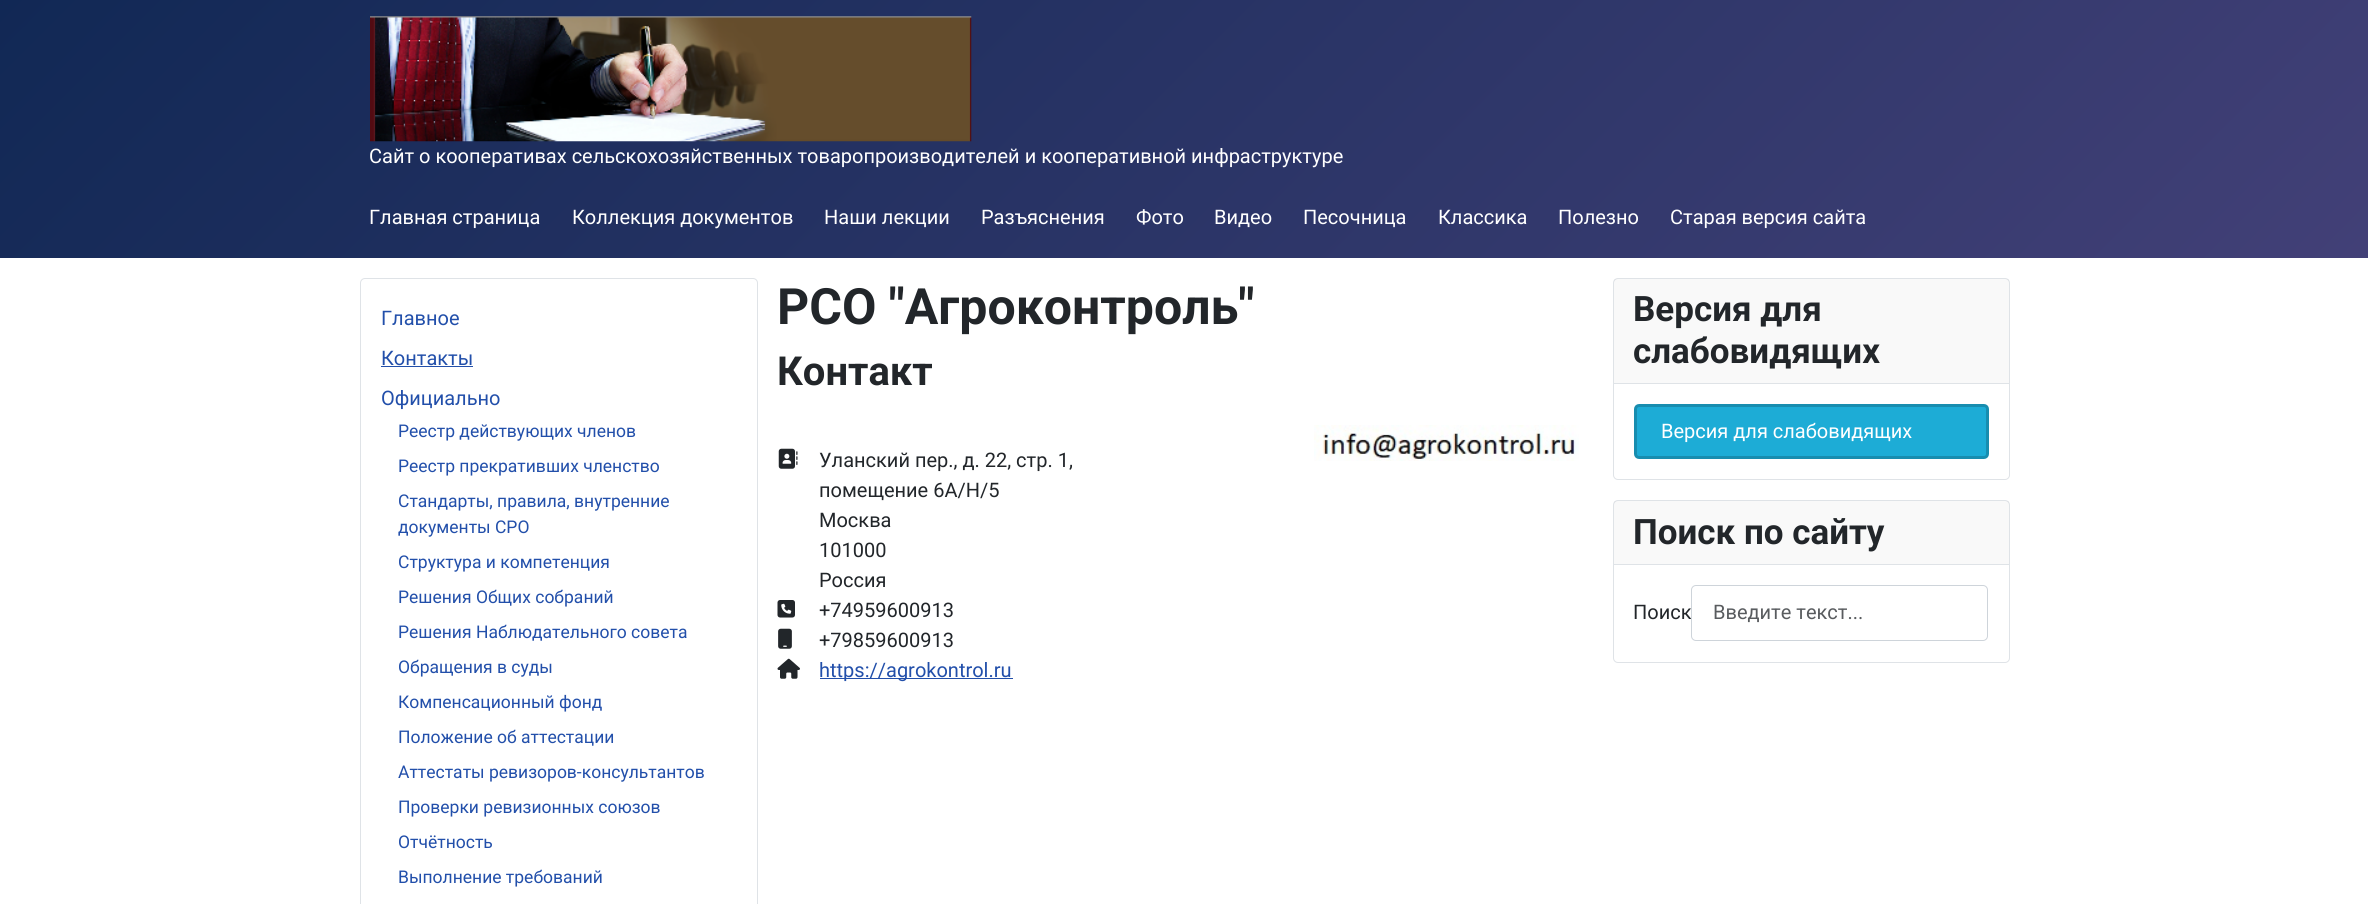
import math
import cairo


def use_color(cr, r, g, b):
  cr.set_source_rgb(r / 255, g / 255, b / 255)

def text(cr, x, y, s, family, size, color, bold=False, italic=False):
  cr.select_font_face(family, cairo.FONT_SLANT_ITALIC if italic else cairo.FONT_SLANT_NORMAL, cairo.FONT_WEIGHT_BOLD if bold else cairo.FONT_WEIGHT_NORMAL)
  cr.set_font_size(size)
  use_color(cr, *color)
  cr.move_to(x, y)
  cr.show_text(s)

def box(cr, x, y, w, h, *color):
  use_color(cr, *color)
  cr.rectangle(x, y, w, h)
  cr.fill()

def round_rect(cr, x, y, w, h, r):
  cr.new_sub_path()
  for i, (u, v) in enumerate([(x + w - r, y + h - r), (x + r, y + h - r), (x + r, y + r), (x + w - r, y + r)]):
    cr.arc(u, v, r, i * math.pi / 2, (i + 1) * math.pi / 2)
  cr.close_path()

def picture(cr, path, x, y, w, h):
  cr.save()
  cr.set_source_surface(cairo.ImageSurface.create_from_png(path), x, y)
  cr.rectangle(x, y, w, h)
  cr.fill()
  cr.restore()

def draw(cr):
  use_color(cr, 255, 255, 255)
  cr.paint()
  gradient = cairo.LinearGradient(528, -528, 1841, 785)
  gradient.add_color_stop_rgba(0, 0.067, 0.157, 0.333, 1)
  gradient.add_color_stop_rgba(1, 0.259, 0.251, 0.467, 1)
  cr.set_source(gradient)
  cr.rectangle(0, 0, 2368, 258)
  cr.fill()
  picture(cr, "img_01.png", 370, 16, 602, 126)
  round_rect(cr, 360.5, 278.5, 397, 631, 4.5)
  use_color(cr, 223, 227, 231)
  cr.set_line_width(1)
  cr.stroke()
  box(cr, 381, 366, 92, 1, 34, 79, 170)
  picture(cr, "img_02.png", 1314, 425, 265, 36)
  picture(cr, "img_03.png", 778, 448, 20, 21)
  picture(cr, "img_04.png", 777, 600, 18, 18)
  picture(cr, "img_05.png", 778, 628, 14, 21)
  picture(cr, "img_06.png", 777, 658, 23, 21)
  box(cr, 820, 678, 193, 1, 34, 79, 170)
  round_rect(cr, 1613.5, 278.5, 396, 201, 4.5)
  use_color(cr, 223, 227, 231)
  cr.stroke()
  cr.set_source_rgba(0.133, 0.149, 0.165, 0.03)
  cr.rectangle(1614, 279, 395, 104)
  cr.fill()
  box(cr, 1614, 383, 395, 1, 223, 227, 231)
  use_color(cr, 29, 172, 214)
  round_rect(cr, 1635.5, 405.5, 352, 52, 3.5)
  cr.fill_preserve()
  use_color(cr, 24, 141, 175)
  cr.set_line_width(3)
  cr.stroke()
  round_rect(cr, 1613.5, 500.5, 396, 162, 4.5)
  use_color(cr, 223, 227, 231)
  cr.set_line_width(1)
  cr.stroke()
  cr.set_source_rgba(0.133, 0.149, 0.165, 0.03)
  cr.rectangle(1614, 501, 395, 63)
  cr.fill()
  box(cr, 1614, 564, 395, 1, 223, 227, 231)
  text(cr, 369, 163, "Сайт о кооперативах сельскохозяйственных товаропроизводителей и кооперативной инфраструктуре", "Roboto", 20, (255, 255, 255))
  text(cr, 369, 224, "Главная страница", "Roboto", 20, (255, 255, 255))
  text(cr, 572, 224, "Коллекция документов", "Roboto", 20, (255, 255, 255))
  text(cr, 824, 224, "Наши лекции", "Roboto", 20, (255, 255, 255))
  text(cr, 981, 224, "Разъяснения", "Roboto", 20, (255, 255, 255))
  text(cr, 1136, 224, "Фото", "Roboto", 20, (255, 255, 255))
  text(cr, 1214, 224, "Видео", "Roboto", 20, (255, 255, 255))
  text(cr, 1303, 224, "Песочница", "Roboto", 20, (255, 255, 255))
  text(cr, 1438, 224, "Классика", "Roboto", 20, (255, 255, 255))
  text(cr, 1558, 224, "Полезно", "Roboto", 20, (255, 255, 255))
  text(cr, 1670, 224, "Старая версия сайта", "Roboto", 20, (255, 255, 255))
  text(cr, 381, 325, "Главное", "Roboto", 20, (34, 79, 170))
  text(cr, 381, 365, "Контакты", "Roboto", 20, (34, 79, 170))
  text(cr, 381, 405, "Официально", "Roboto", 20, (34, 79, 170))
  text(cr, 398, 437, "Реестр действующих членов", "Roboto", 17.5, (34, 79, 170))
  text(cr, 398, 472, "Реестр прекративших членство", "Roboto", 17.5, (34, 79, 170))
  text(cr, 398, 507, "Стандарты, правила, внутренние", "Roboto", 17.5, (34, 79, 170))
  text(cr, 398, 533, "документы СРО", "Roboto", 17.5, (34, 79, 170))
  text(cr, 398, 568, "Структура и компетенция", "Roboto", 17.5, (34, 79, 170))
  text(cr, 398, 603, "Решения Общих собраний", "Roboto", 17.5, (34, 79, 170))
  text(cr, 398, 638, "Решения Наблюдательного совета", "Roboto", 17.5, (34, 79, 170))
  text(cr, 398, 673, "Обращения в суды", "Roboto", 17.5, (34, 79, 170))
  text(cr, 398, 708, "Компенсационный фонд", "Roboto", 17.5, (34, 79, 170))
  text(cr, 398, 743, "Положение об аттестации", "Roboto", 17.5, (34, 79, 170))
  text(cr, 398, 778, "Аттестаты ревизоров-консультантов", "Roboto", 17.5, (34, 79, 170))
  text(cr, 398, 813, "Проверки ревизионных союзов", "Roboto", 17.5, (34, 79, 170))
  text(cr, 398, 848, "Отчётность", "Roboto", 17.5, (34, 79, 170))
  text(cr, 398, 883, "Выполнение требований", "Roboto", 17.5, (34, 79, 170))
  text(cr, 777, 324, "РСО \"Агроконтроль\"", "Roboto", 50, (34, 38, 42), bold=True)
  text(cr, 777, 385, "Контакт", "Roboto", 40, (34, 38, 42), bold=True)
  text(cr, 819, 467, "Уланский пер., д. 22, стр. 1,", "Roboto", 20, (34, 38, 42))
  text(cr, 819, 497, "помещение 6А/Н/5", "Roboto", 20, (34, 38, 42))
  text(cr, 819, 527, "Москва", "Roboto", 20, (34, 38, 42))
  text(cr, 819, 557, "101000", "Roboto", 20, (34, 38, 42))
  text(cr, 819, 587, "Россия", "Roboto", 20, (34, 38, 42))
  text(cr, 819, 617, "+74959600913", "Roboto", 20, (34, 38, 42))
  text(cr, 819, 647, "+79859600913", "Roboto", 20, (34, 38, 42))
  text(cr, 819, 677, "https://agrokontrol.ru", "Roboto", 20, (34, 79, 170))
  text(cr, 1633, 321, "Версия для", "Roboto", 35, (34, 38, 42), bold=True)
  text(cr, 1633, 363, "слабовидящих", "Roboto", 35, (34, 38, 42), bold=True)
  text(cr, 1661, 438, "Версия для слабовидящих", "Roboto", 20, (255, 255, 255))
  text(cr, 1633, 544, "Поиск по сайту", "Roboto", 35, (34, 38, 42), bold=True)
  text(cr, 1633, 619, "Поиск", "Roboto", 20, (34, 38, 42))
  round_rect(cr, 1691.5, 585.5, 296, 55, 4.5)
  use_color(cr, 206, 212, 218)
  cr.stroke()
  text(cr, 1713, 619, "Введите текст...", "Roboto", 20, (89, 92, 95))


surface = cairo.ImageSurface(cairo.FORMAT_RGB24, 2368, 904)
cr = cairo.Context(surface)
options = cairo.FontOptions()
options.set_hint_metrics(cairo.HINT_METRICS_OFF)
options.set_hint_style(cairo.HINT_STYLE_NONE)
cr.set_font_options(options)
cr.set_miter_limit(4)
draw(cr)
surface.write_to_png("out.png")
